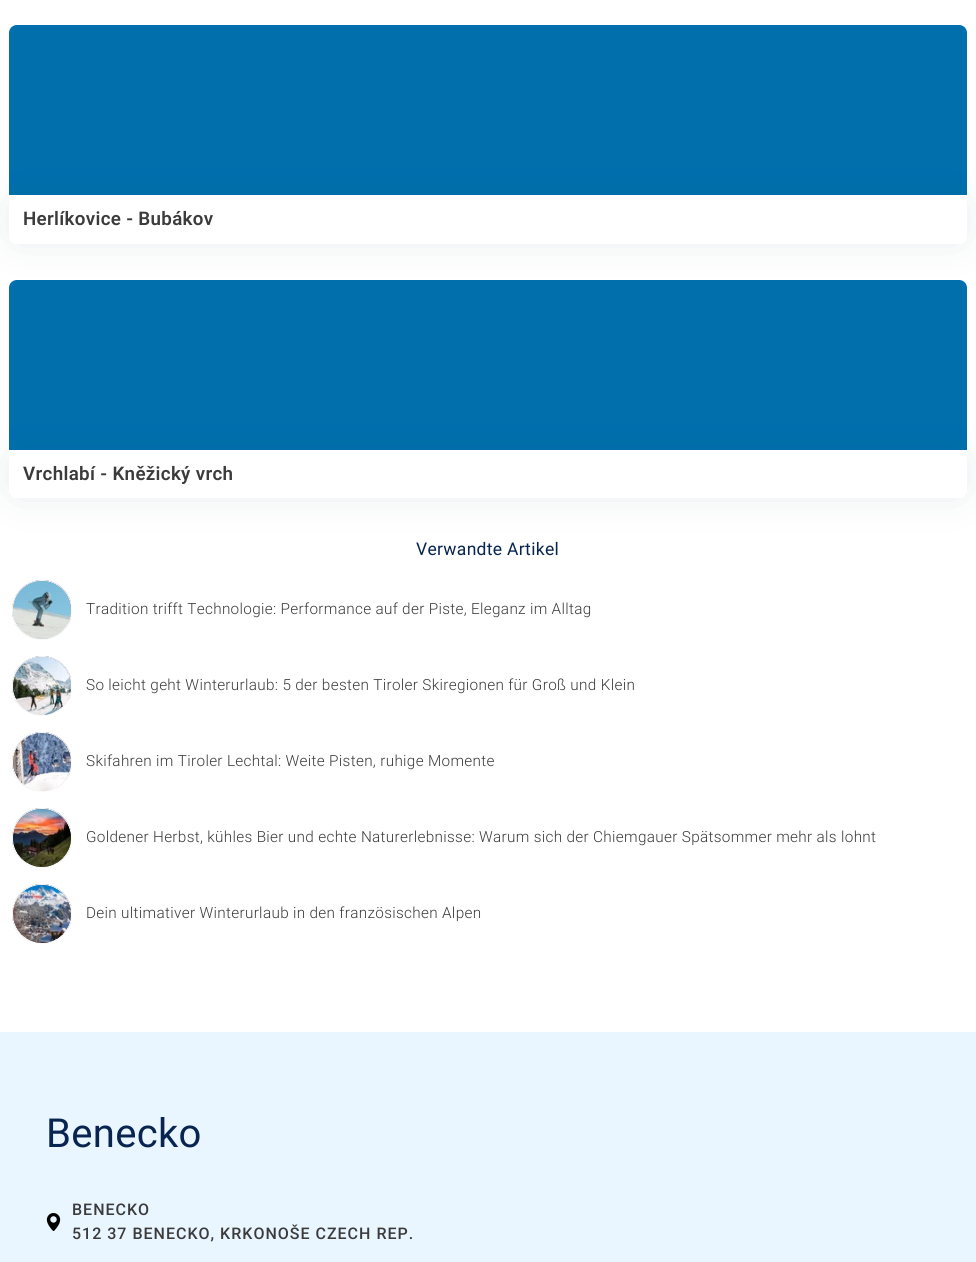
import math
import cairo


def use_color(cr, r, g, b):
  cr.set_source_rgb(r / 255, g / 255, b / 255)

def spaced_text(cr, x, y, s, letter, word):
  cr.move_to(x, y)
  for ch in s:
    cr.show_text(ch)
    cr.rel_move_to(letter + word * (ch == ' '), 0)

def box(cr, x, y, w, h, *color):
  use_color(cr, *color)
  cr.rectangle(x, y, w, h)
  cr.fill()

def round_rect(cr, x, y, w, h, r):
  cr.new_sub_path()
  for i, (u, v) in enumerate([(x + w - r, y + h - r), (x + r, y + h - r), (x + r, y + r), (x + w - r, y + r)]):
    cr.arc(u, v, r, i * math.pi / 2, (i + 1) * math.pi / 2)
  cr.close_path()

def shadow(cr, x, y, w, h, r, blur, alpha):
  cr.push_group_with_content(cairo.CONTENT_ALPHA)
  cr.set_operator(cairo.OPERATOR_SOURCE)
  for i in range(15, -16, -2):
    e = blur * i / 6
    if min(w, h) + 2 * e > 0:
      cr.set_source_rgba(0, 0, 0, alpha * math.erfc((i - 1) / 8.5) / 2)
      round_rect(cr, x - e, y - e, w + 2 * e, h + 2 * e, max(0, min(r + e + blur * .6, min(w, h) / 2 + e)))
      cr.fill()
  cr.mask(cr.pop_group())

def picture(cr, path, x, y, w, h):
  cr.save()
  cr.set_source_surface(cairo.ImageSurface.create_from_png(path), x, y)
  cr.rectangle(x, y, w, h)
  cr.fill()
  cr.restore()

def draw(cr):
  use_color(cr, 255, 255, 255)
  cr.paint()
  use_color(cr, 0, 111, 172)
  cr.new_path()
  cr.move_to(17, 25)
  cr.line_to(959, 25)
  cr.curve_to(963.5, 25, 967, 28.5, 967, 33)
  cr.line_to(967, 195)
  cr.line_to(9, 195)
  cr.line_to(9, 33)
  cr.curve_to(9, 28.5, 12.5, 25, 17, 25)
  cr.close_path()
  cr.fill()
  cr.save()
  cr.set_fill_rule(cairo.FILL_RULE_EVEN_ODD)
  cr.new_path()
  cr.move_to(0, 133)
  cr.line_to(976, 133)
  cr.line_to(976, 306)
  cr.line_to(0, 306)
  cr.close_path()
  cr.move_to(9, 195)
  cr.line_to(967, 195)
  cr.line_to(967, 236)
  cr.curve_to(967, 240.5, 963.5, 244, 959, 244)
  cr.line_to(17, 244)
  cr.curve_to(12.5, 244, 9, 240.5, 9, 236)
  cr.close_path()
  cr.clip()
  use_color(cr, 2, 56, 85)
  shadow(cr, 16, 202, 944, 35, 1, 22.5, 0.12)
  cr.restore()
  cr.new_path()
  cr.move_to(17, 280)
  cr.line_to(959, 280)
  cr.curve_to(963.5, 280, 967, 283.5, 967, 288)
  cr.line_to(967, 450)
  cr.line_to(9, 450)
  cr.line_to(9, 288)
  cr.curve_to(9, 283.5, 12.5, 280, 17, 280)
  cr.close_path()
  cr.fill()
  cr.save()
  cr.set_fill_rule(cairo.FILL_RULE_EVEN_ODD)
  cr.new_path()
  cr.move_to(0, 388)
  cr.line_to(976, 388)
  cr.line_to(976, 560)
  cr.line_to(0, 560)
  cr.close_path()
  cr.move_to(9, 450)
  cr.line_to(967, 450)
  cr.line_to(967, 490)
  cr.curve_to(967, 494.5, 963.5, 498, 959, 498)
  cr.line_to(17, 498)
  cr.curve_to(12.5, 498, 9, 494.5, 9, 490)
  cr.close_path()
  cr.clip()
  use_color(cr, 2, 56, 85)
  shadow(cr, 16, 457, 944, 34, 1, 22.5, 0.12)
  cr.restore()
  picture(cr, "img_01.png", 12, 580, 59, 59)
  cr.arc(42, 610, 29.5, 0, 2 * math.pi)
  use_color(cr, 249, 249, 249)
  cr.set_line_width(1)
  cr.stroke()
  picture(cr, "img_02.png", 13, 581, 58, 58)
  picture(cr, "img_03.png", 12, 656, 59, 59)
  cr.arc(42, 686, 29.5, 0, 2 * math.pi)
  cr.stroke()
  picture(cr, "img_04.png", 13, 657, 58, 58)
  picture(cr, "img_05.png", 12, 732, 59, 59)
  cr.arc(42, 762, 29.5, 0, 2 * math.pi)
  cr.stroke()
  picture(cr, "img_06.png", 13, 733, 58, 58)
  picture(cr, "img_07.png", 12, 808, 59, 59)
  cr.arc(42, 838, 29.5, 0, 2 * math.pi)
  cr.stroke()
  picture(cr, "img_08.png", 13, 809, 58, 58)
  picture(cr, "img_09.png", 12, 884, 59, 59)
  cr.arc(42, 914, 29.5, 0, 2 * math.pi)
  cr.stroke()
  picture(cr, "img_10.png", 13, 885, 58, 58)
  box(cr, 0, 1032, 976, 230, 233, 245, 255)
  picture(cr, "img_11.png", 46, 1213, 15, 18)
  cr.select_font_face("Roboto SemiBold")
  cr.set_font_size(18.75)
  use_color(cr, 59, 59, 59)
  spaced_text(cr, 23, 225, "Herlíkovice - Bubákov", 0.32, 0)
  spaced_text(cr, 23, 480, "Vrchlabí - Kněžický vrch", 0.32, 0)
  cr.select_font_face("Roboto")
  cr.set_font_size(17.5)
  use_color(cr, 8, 36, 80)
  spaced_text(cr, 416, 555, "Verwandte Artikel", 0.32, 0)
  cr.select_font_face("Roboto Light")
  cr.set_font_size(15.3)
  use_color(cr, 59, 59, 59)
  spaced_text(cr, 86, 614, "Tradition trifft Technologie: Performance auf der Piste, Eleganz im Alltag", 0.32, 0)
  spaced_text(cr, 86, 690, "So leicht geht Winterurlaub: 5 der besten Tiroler Skiregionen für Groß und Klein", 0.32, 0)
  spaced_text(cr, 86, 766, "Skifahren im Tiroler Lechtal: Weite Pisten, ruhige Momente", 0.32, 0)
  spaced_text(cr, 86, 842, "Goldener Herbst, kühles Bier und echte Naturerlebnisse: Warum sich der Chiemgauer Spätsommer mehr als lohnt", 0.32, 0)
  spaced_text(cr, 86, 918, "Dein ultimativer Winterurlaub in den französischen Alpen", 0.32, 0)
  cr.select_font_face("Roboto")
  cr.set_font_size(40)
  use_color(cr, 8, 36, 80)
  spaced_text(cr, 46, 1147, "Benecko", 0.32, 0)
  cr.select_font_face("Roboto Medium")
  cr.set_font_size(16)
  use_color(cr, 59, 59, 59)
  spaced_text(cr, 72, 1215, "BENECKO", 1, 0)
  spaced_text(cr, 72, 1239, "512 37 BENECKO, KRKONOŠE CZECH REP.", 1, 0)


surface = cairo.ImageSurface(cairo.FORMAT_RGB24, 976, 1262)
cr = cairo.Context(surface)
options = cairo.FontOptions()
options.set_hint_metrics(cairo.HINT_METRICS_OFF)
options.set_hint_style(cairo.HINT_STYLE_NONE)
cr.set_font_options(options)
cr.set_miter_limit(4)
draw(cr)
surface.write_to_png("out.png")
